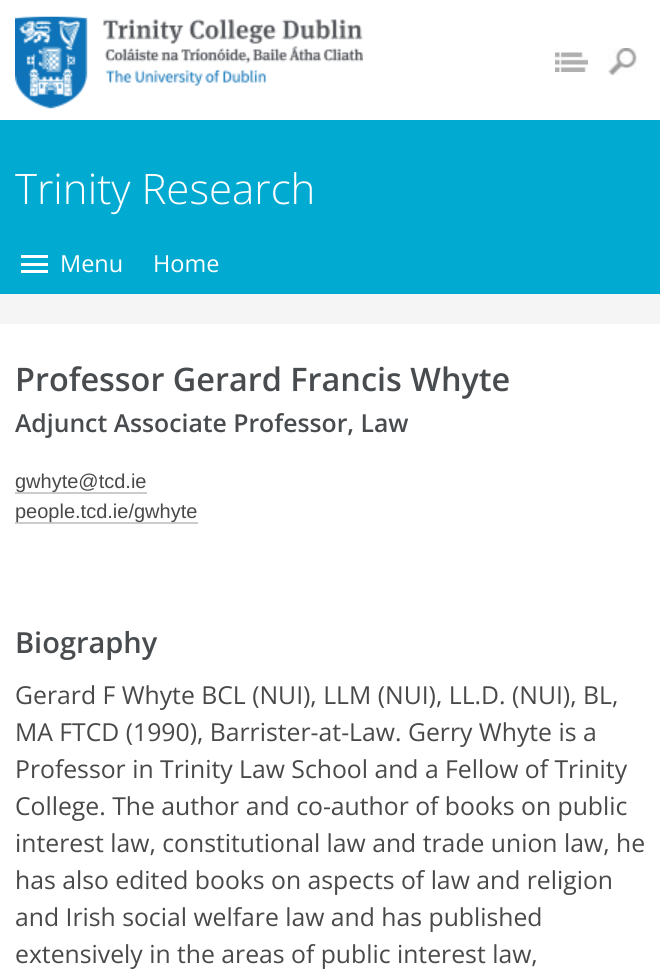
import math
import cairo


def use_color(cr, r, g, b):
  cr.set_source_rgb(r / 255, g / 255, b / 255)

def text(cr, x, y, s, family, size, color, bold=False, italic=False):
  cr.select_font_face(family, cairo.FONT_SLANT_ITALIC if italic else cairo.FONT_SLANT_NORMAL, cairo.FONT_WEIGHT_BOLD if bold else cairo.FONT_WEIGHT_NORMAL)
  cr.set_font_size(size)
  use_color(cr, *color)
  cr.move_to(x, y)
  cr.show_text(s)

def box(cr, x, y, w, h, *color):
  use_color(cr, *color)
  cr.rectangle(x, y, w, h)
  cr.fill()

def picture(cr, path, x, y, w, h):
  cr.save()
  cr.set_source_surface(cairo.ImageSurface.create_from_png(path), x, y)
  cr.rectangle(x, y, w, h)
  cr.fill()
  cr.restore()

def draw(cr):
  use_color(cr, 255, 255, 255)
  cr.paint()
  picture(cr, "img_01.png", 15, 16, 348, 93)
  picture(cr, "img_02.png", 555, 52, 33, 20)
  picture(cr, "img_03.png", 607, 48, 30, 27)
  box(cr, 0, 120, 660, 174, 1, 170, 208)
  box(cr, 21, 255, 27, 3, 255, 255, 255)
  box(cr, 21, 263, 27, 3, 255, 255, 255)
  box(cr, 21, 270, 27, 3, 255, 255, 255)
  box(cr, 0, 294, 660, 30, 245, 245, 245)
  box(cr, 15, 492, 132, 2, 204, 204, 204)
  box(cr, 15, 522, 183, 2, 204, 204, 204)
  text(cr, 15, 204, "Trinity Research", "Open Sans Light", 42, (255, 255, 255))
  text(cr, 60, 272, "Menu", "Open Sans", 23.5, (255, 255, 255))
  text(cr, 153, 272, "Home", "Open Sans", 23.5, (255, 255, 255))
  text(cr, 15, 391, "Professor Gerard Francis Whyte", "Open Sans SemiBold", 32.4, (73, 76, 79))
  text(cr, 15, 432, "Adjunct Associate Professor, Law", "Open Sans SemiBold", 24.75, (73, 76, 79))
  text(cr, 15, 488, "gwhyte@tcd.ie", "Liberation Sans", 20, (73, 73, 73))
  text(cr, 15, 518, "people.tcd.ie/gwhyte", "Liberation Sans", 20, (73, 73, 73))
  text(cr, 15, 653, "Biography", "Open Sans SemiBold", 29, (73, 76, 79))
  text(cr, 15, 704, "Gerard F Whyte BCL (NUI), LLM (NUI), LL.D. (NUI), BL,", "Open Sans", 24.75, (73, 73, 73))
  text(cr, 15, 741, "MA FTCD (1990), Barrister-at-Law. Gerry Whyte is a", "Open Sans", 24.75, (73, 73, 73))
  text(cr, 15, 778, "Professor in Trinity Law School and a Fellow of Trinity", "Open Sans", 24.75, (73, 73, 73))
  text(cr, 15, 815, "College. The author and co-author of books on public", "Open Sans", 24.75, (73, 73, 73))
  text(cr, 15, 852, "interest law, constitutional law and trade union law, he", "Open Sans", 24.75, (73, 73, 73))
  text(cr, 15, 889, "has also edited books on aspects of law and religion", "Open Sans", 24.75, (73, 73, 73))
  text(cr, 15, 926, "and Irish social welfare law and has published", "Open Sans", 24.75, (73, 73, 73))
  text(cr, 15, 963, "extensively in the areas of public interest law,", "Open Sans", 24.75, (73, 73, 73))


surface = cairo.ImageSurface(cairo.FORMAT_RGB24, 660, 976)
cr = cairo.Context(surface)
options = cairo.FontOptions()
options.set_hint_metrics(cairo.HINT_METRICS_OFF)
options.set_hint_style(cairo.HINT_STYLE_NONE)
cr.set_font_options(options)
cr.set_miter_limit(4)
draw(cr)
surface.write_to_png("out.png")
